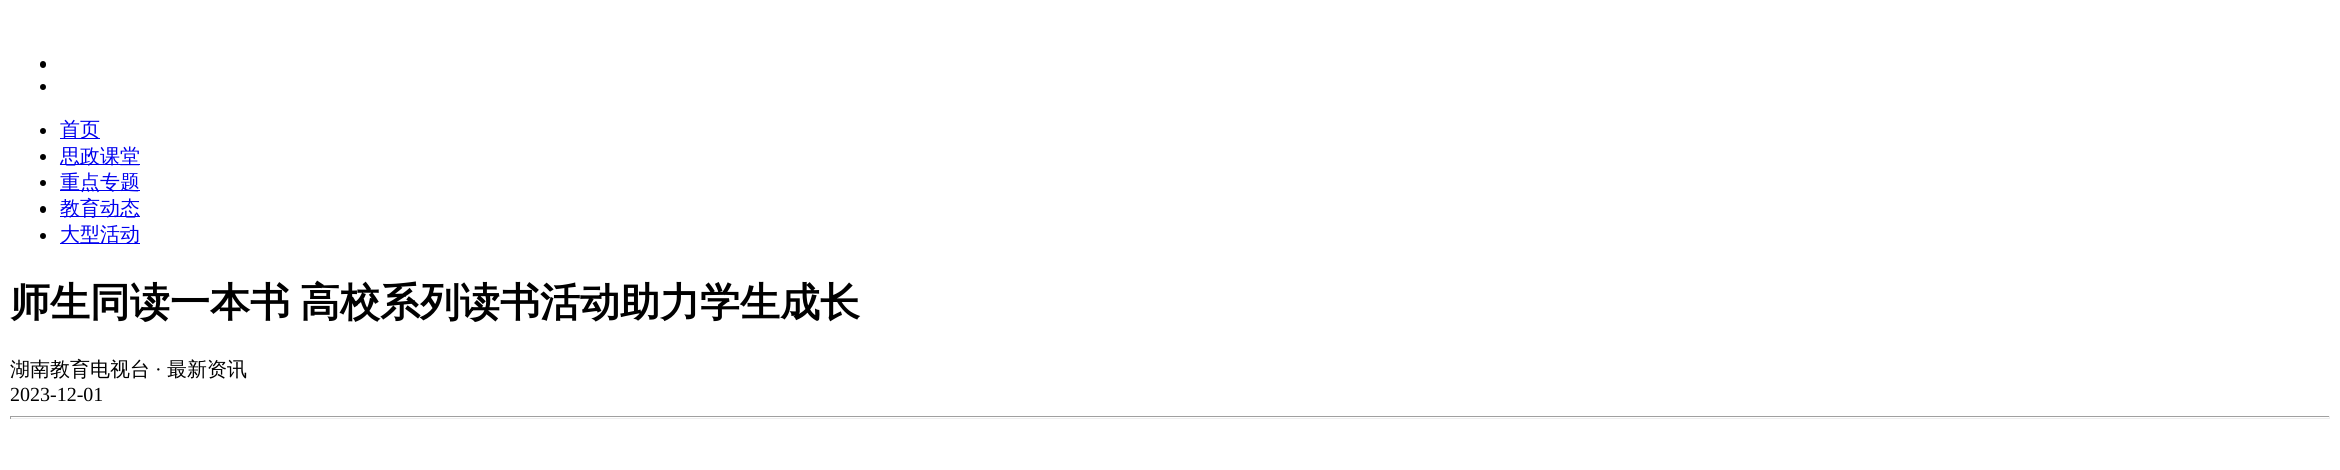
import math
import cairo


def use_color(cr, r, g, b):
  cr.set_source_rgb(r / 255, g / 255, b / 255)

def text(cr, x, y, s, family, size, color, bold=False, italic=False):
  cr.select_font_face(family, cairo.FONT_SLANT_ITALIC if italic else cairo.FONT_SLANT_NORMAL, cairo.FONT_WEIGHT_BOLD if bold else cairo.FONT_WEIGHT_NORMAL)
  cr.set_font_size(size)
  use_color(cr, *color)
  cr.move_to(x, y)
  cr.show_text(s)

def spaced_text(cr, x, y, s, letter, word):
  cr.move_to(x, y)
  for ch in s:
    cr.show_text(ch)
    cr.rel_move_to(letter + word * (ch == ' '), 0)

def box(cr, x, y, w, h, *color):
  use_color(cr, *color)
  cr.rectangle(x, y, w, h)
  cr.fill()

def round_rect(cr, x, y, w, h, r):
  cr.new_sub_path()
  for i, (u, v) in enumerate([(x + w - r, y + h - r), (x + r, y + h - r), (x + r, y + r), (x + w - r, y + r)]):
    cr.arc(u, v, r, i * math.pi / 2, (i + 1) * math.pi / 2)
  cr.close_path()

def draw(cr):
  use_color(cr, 255, 255, 255)
  cr.paint()
  use_color(cr, 0, 0, 0)
  round_rect(cr, 40, 61, 6, 7, 3)
  cr.fill()
  cr.arc(43, 87, 3, 0, 2 * math.pi)
  cr.fill()
  cr.arc(43, 131, 3, 0, 2 * math.pi)
  cr.fill()
  box(cr, 60, 138, 40, 1, 0, 0, 238)
  use_color(cr, 0, 0, 0)
  cr.arc(43, 157, 3, 0, 2 * math.pi)
  cr.fill()
  box(cr, 60, 164, 80, 1, 0, 0, 238)
  use_color(cr, 0, 0, 0)
  cr.arc(43, 183, 3, 0, 2 * math.pi)
  cr.fill()
  box(cr, 60, 190, 80, 1, 0, 0, 238)
  use_color(cr, 0, 0, 0)
  round_rect(cr, 40, 206, 6, 7, 3)
  cr.fill()
  box(cr, 60, 216, 80, 1, 0, 0, 238)
  use_color(cr, 0, 0, 0)
  cr.arc(43, 236, 3, 0, 2 * math.pi)
  cr.fill()
  box(cr, 60, 243, 80, 1, 0, 0, 238)
  box(cr, 10, 416, 2320, 1, 159, 159, 159)
  box(cr, 2329, 416, 1, 3, 238, 238, 238)
  box(cr, 10, 418, 2320, 1, 238, 238, 238)
  box(cr, 10, 416, 1, 3, 159, 159, 159)
  text(cr, 60, 136, "首页", "WenQuanYi Zen Hei Medium", 20, (0, 0, 238))
  text(cr, 60, 163, "思政课堂", "WenQuanYi Zen Hei Medium", 20, (0, 0, 238))
  text(cr, 60, 189, "重点专题", "WenQuanYi Zen Hei Medium", 20, (0, 0, 238))
  text(cr, 60, 215, "教育动态", "WenQuanYi Zen Hei Medium", 20, (0, 0, 238))
  text(cr, 60, 241, "大型活动", "WenQuanYi Zen Hei Medium", 20, (0, 0, 238))
  cr.select_font_face("WenQuanYi Zen Hei", cairo.FONT_SLANT_NORMAL, cairo.FONT_WEIGHT_BOLD)
  cr.set_font_size(40)
  use_color(cr, 0, 0, 0)
  spaced_text(cr, 10, 316, "师生同读一本书 高校系列读书活动助力学生成长", 0, -2)
  text(cr, 10, 376, "湖南教育电视台", "WenQuanYi Zen Hei Medium", 20, (0, 0, 0))
  text(cr, 155, 376, "·", "Liberation Serif", 20, (0, 0, 0))
  text(cr, 167, 376, "最新资讯", "WenQuanYi Zen Hei Medium", 20, (0, 0, 0))
  text(cr, 10, 401, "2023-12-01", "Liberation Serif", 20, (0, 0, 0))


surface = cairo.ImageSurface(cairo.FORMAT_RGB24, 2340, 470)
cr = cairo.Context(surface)
options = cairo.FontOptions()
options.set_hint_metrics(cairo.HINT_METRICS_OFF)
options.set_hint_style(cairo.HINT_STYLE_NONE)
cr.set_font_options(options)
cr.set_miter_limit(4)
draw(cr)
surface.write_to_png("out.png")
